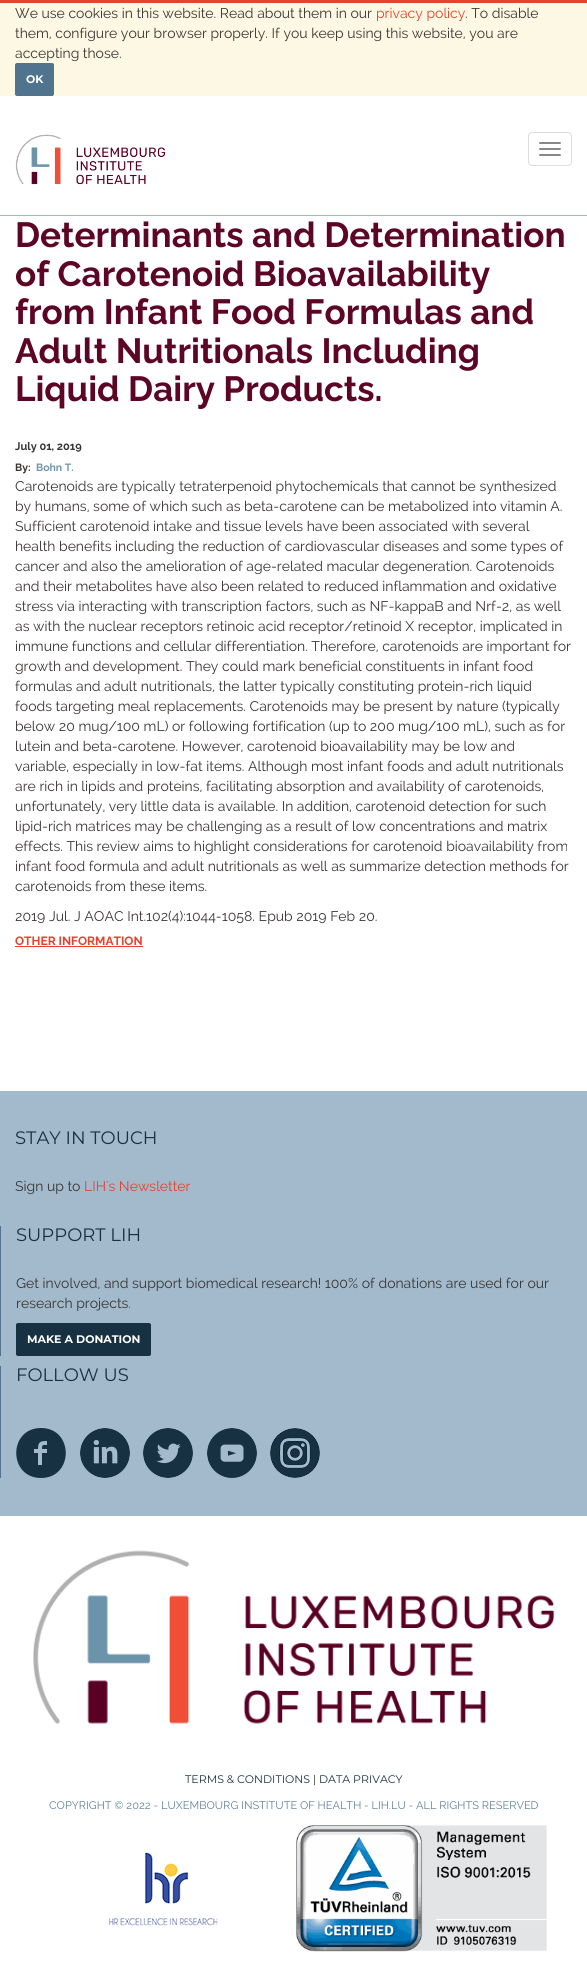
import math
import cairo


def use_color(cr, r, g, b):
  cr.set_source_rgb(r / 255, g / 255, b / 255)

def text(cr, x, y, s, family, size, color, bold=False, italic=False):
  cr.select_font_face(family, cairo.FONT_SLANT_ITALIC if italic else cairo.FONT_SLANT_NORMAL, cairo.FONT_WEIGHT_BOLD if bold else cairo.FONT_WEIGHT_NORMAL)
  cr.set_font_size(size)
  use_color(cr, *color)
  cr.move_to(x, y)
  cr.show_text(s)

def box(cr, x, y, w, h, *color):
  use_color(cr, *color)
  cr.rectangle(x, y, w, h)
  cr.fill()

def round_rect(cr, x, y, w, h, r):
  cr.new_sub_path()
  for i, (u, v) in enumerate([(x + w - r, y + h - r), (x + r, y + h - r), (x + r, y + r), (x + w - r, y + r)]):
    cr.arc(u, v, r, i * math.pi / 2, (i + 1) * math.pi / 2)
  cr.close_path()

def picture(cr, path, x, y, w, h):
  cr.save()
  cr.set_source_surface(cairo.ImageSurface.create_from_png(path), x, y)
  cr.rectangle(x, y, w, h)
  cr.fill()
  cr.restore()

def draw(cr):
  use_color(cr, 255, 255, 255)
  cr.paint()
  box(cr, 0, 0, 587, 3, 232, 65, 44)
  box(cr, 0, 3, 587, 93, 252, 248, 227)
  use_color(cr, 80, 116, 142)
  round_rect(cr, 15, 63, 39, 33, 2)
  cr.fill()
  box(cr, 0, 215, 587, 1, 162, 186, 203)
  picture(cr, "img_01.png", 15, 134, 151, 51)
  round_rect(cr, 528.5, 132.5, 43, 33, 3.5)
  use_color(cr, 221, 221, 221)
  cr.set_line_width(1)
  cr.stroke()
  use_color(cr, 136, 136, 136)
  round_rect(cr, 539, 142, 22, 2, 1)
  cr.fill()
  round_rect(cr, 539, 148, 22, 2, 1)
  cr.fill()
  round_rect(cr, 539, 154, 22, 2, 1)
  cr.fill()
  box(cr, 15, 946, 128, 1, 232, 65, 44)
  box(cr, 0, 1091, 587, 425, 162, 186, 203)
  box(cr, 0, 1226, 1, 130, 80, 116, 142)
  use_color(cr, 24, 49, 66)
  round_rect(cr, 16, 1323, 135, 33, 2)
  cr.fill()
  box(cr, 0, 1366, 1, 112, 80, 116, 142)
  use_color(cr, 24, 49, 66)
  cr.set_fill_rule(cairo.FILL_RULE_EVEN_ODD)
  cr.new_path()
  cr.move_to(41, 1428)
  cr.curve_to(8, 1428, 8, 1478, 41, 1478)
  cr.curve_to(74, 1478, 74, 1428, 41, 1428)
  cr.close_path()
  cr.move_to(47, 1445)
  cr.line_to(47, 1441)
  cr.curve_to(40, 1441, 38, 1442, 38, 1449)
  cr.line_to(34, 1449)
  cr.line_to(34, 1453)
  cr.line_to(38, 1453)
  cr.line_to(38, 1465)
  cr.line_to(42, 1465)
  cr.line_to(42, 1453)
  cr.line_to(47, 1453)
  cr.line_to(47, 1449)
  cr.line_to(42, 1449)
  cr.curve_to(42, 1444, 43, 1445, 47, 1445)
  cr.close_path()
  cr.fill()
  picture(cr, "img_02.png", 80, 1428, 50, 50)
  picture(cr, "img_03.png", 143, 1428, 50, 50)
  picture(cr, "img_04.png", 207, 1428, 50, 50)
  picture(cr, "img_05.png", 270, 1428, 50, 50)
  picture(cr, "img_06.png", 33, 1550, 522, 174)
  picture(cr, "img_07.png", 108, 1852, 110, 74)
  picture(cr, "img_08.png", 296, 1825, 251, 127)
  text(cr, 15, 18, "We use cookies in this website. Read about them in our", "Raleway", 14, (57, 53, 52))
  text(cr, 376, 18, "privacy policy", "Raleway", 14, (232, 65, 44))
  text(cr, 465, 18, ". To disable", "Raleway", 14, (57, 53, 52))
  text(cr, 15, 38, "them, configure your browser properly. If you keep using this website, you are", "Raleway", 14, (57, 53, 52))
  text(cr, 15, 58, "accepting those.", "Raleway", 14, (57, 53, 52))
  text(cr, 26, 83, "OK", "Montserrat", 11, (255, 255, 255), bold=True)
  text(cr, 15, 247, "Determinants and Determination", "Raleway", 35, (93, 5, 36), bold=True)
  text(cr, 15, 286, "of Carotenoid Bioavailability", "Raleway", 35, (93, 5, 36), bold=True)
  text(cr, 15, 324, "from Infant Food Formulas and", "Raleway", 35, (93, 5, 36), bold=True)
  text(cr, 15, 363, "Adult Nutritionals Including", "Raleway", 35, (93, 5, 36), bold=True)
  text(cr, 15, 401, "Liquid Dairy Products.", "Raleway", 35, (93, 5, 36), bold=True)
  text(cr, 15, 450, "July 01, 2019", "Raleway", 11, (57, 53, 52), bold=True)
  text(cr, 15, 471, "By:", "Raleway", 10.5, (57, 53, 52), bold=True)
  text(cr, 36, 471, "Bohn T.", "Raleway", 10.5, (110, 151, 173), bold=True)
  text(cr, 15, 491, "Carotenoids are typically tetraterpenoid phytochemicals that cannot be synthesized", "Raleway", 14, (57, 53, 52))
  text(cr, 15, 511, "by humans, some of which such as beta-carotene can be metabolized into vitamin A.", "Raleway", 14, (57, 53, 52))
  text(cr, 15, 531, "Sufficient carotenoid intake and tissue levels have been associated with several", "Raleway", 14, (57, 53, 52))
  text(cr, 15, 551, "health benefits including the reduction of cardiovascular diseases and some types of", "Raleway", 14, (57, 53, 52))
  text(cr, 15, 571, "cancer and also the amelioration of age-related macular degeneration. Carotenoids", "Raleway", 14, (57, 53, 52))
  text(cr, 15, 591, "and their metabolites have also been related to reduced inflammation and oxidative", "Raleway", 14, (57, 53, 52))
  text(cr, 15, 611, "stress via interacting with transcription factors, such as NF-kappaB and Nrf-2, as well", "Raleway", 14, (57, 53, 52))
  text(cr, 15, 631, "as with the nuclear receptors retinoic acid receptor/retinoid X receptor, implicated in", "Raleway", 14, (57, 53, 52))
  text(cr, 15, 651, "immune functions and cellular differentiation. Therefore, carotenoids are important for", "Raleway", 14, (57, 53, 52))
  text(cr, 15, 671, "growth and development. They could mark beneficial constituents in infant food", "Raleway", 14, (57, 53, 52))
  text(cr, 15, 691, "formulas and adult nutritionals, the latter typically constituting protein-rich liquid", "Raleway", 14, (57, 53, 52))
  text(cr, 15, 711, "foods targeting meal replacements. Carotenoids may be present by nature (typically", "Raleway", 14, (57, 53, 52))
  text(cr, 15, 731, "below 20 mug/100 mL) or following fortification (up to 200 mug/100 mL), such as for", "Raleway", 14, (57, 53, 52))
  text(cr, 15, 751, "lutein and beta-carotene. However, carotenoid bioavailability may be low and", "Raleway", 14, (57, 53, 52))
  text(cr, 15, 771, "variable, especially in low-fat items. Although most infant foods and adult nutritionals", "Raleway", 14, (57, 53, 52))
  text(cr, 15, 791, "are rich in lipids and proteins, facilitating absorption and availability of carotenoids,", "Raleway", 14, (57, 53, 52))
  text(cr, 15, 811, "unfortunately, very little data is available. In addition, carotenoid detection for such", "Raleway", 14, (57, 53, 52))
  text(cr, 15, 831, "lipid-rich matrices may be challenging as a result of low concentrations and matrix", "Raleway", 14, (57, 53, 52))
  text(cr, 15, 851, "effects. This review aims to highlight considerations for carotenoid bioavailability from", "Raleway", 14, (57, 53, 52))
  text(cr, 15, 871, "infant food formula and adult nutritionals as well as summarize detection methods for", "Raleway", 14, (57, 53, 52))
  text(cr, 15, 891, "carotenoids from these items.", "Raleway", 14, (57, 53, 52))
  text(cr, 15, 921, "2019 Jul. J AOAC Int.102(4):1044-1058. Epub 2019 Feb 20.", "Raleway", 14, (57, 53, 52))
  text(cr, 15, 945, "OTHER INFORMATION", "Raleway", 12, (232, 65, 44), bold=True)
  text(cr, 15, 1144, "STAY IN TOUCH", "Montserrat", 18, (24, 49, 66))
  text(cr, 15, 1191, "Sign up to", "Raleway", 14, (57, 53, 52))
  text(cr, 84, 1191, "LIH's Newsletter", "Raleway", 14, (232, 65, 44))
  text(cr, 16, 1241, "SUPPORT LIH", "Montserrat", 18, (24, 49, 66))
  text(cr, 16, 1288, "Get involved, and support biomedical research! 100% of donations are used for our", "Raleway", 14, (57, 53, 52))
  text(cr, 16, 1308, "research projects.", "Raleway", 14, (57, 53, 52))
  text(cr, 27, 1343, "MAKE A DONATION", "Montserrat", 11, (255, 255, 255), bold=True)
  text(cr, 16, 1381, "FOLLOW US", "Montserrat", 18, (24, 49, 66))
  text(cr, 185, 1783, "TERMS & CONDITIONS", "Montserrat", 11, (24, 49, 66))
  text(cr, 313, 1783, "|", "Montserrat", 11, (57, 53, 52))
  text(cr, 319, 1783, "DATA PRIVACY", "Montserrat", 11, (24, 49, 66))
  text(cr, 49, 1809, "COPYRIGHT © 2022 - LUXEMBOURG INSTITUTE OF HEALTH - LIH.LU - ALL RIGHTS RESERVED", "Raleway", 11, (96, 129, 152))


surface = cairo.ImageSurface(cairo.FORMAT_RGB24, 587, 1970)
cr = cairo.Context(surface)
options = cairo.FontOptions()
options.set_hint_metrics(cairo.HINT_METRICS_OFF)
options.set_hint_style(cairo.HINT_STYLE_NONE)
cr.set_font_options(options)
cr.set_miter_limit(4)
draw(cr)
surface.write_to_png("out.png")
